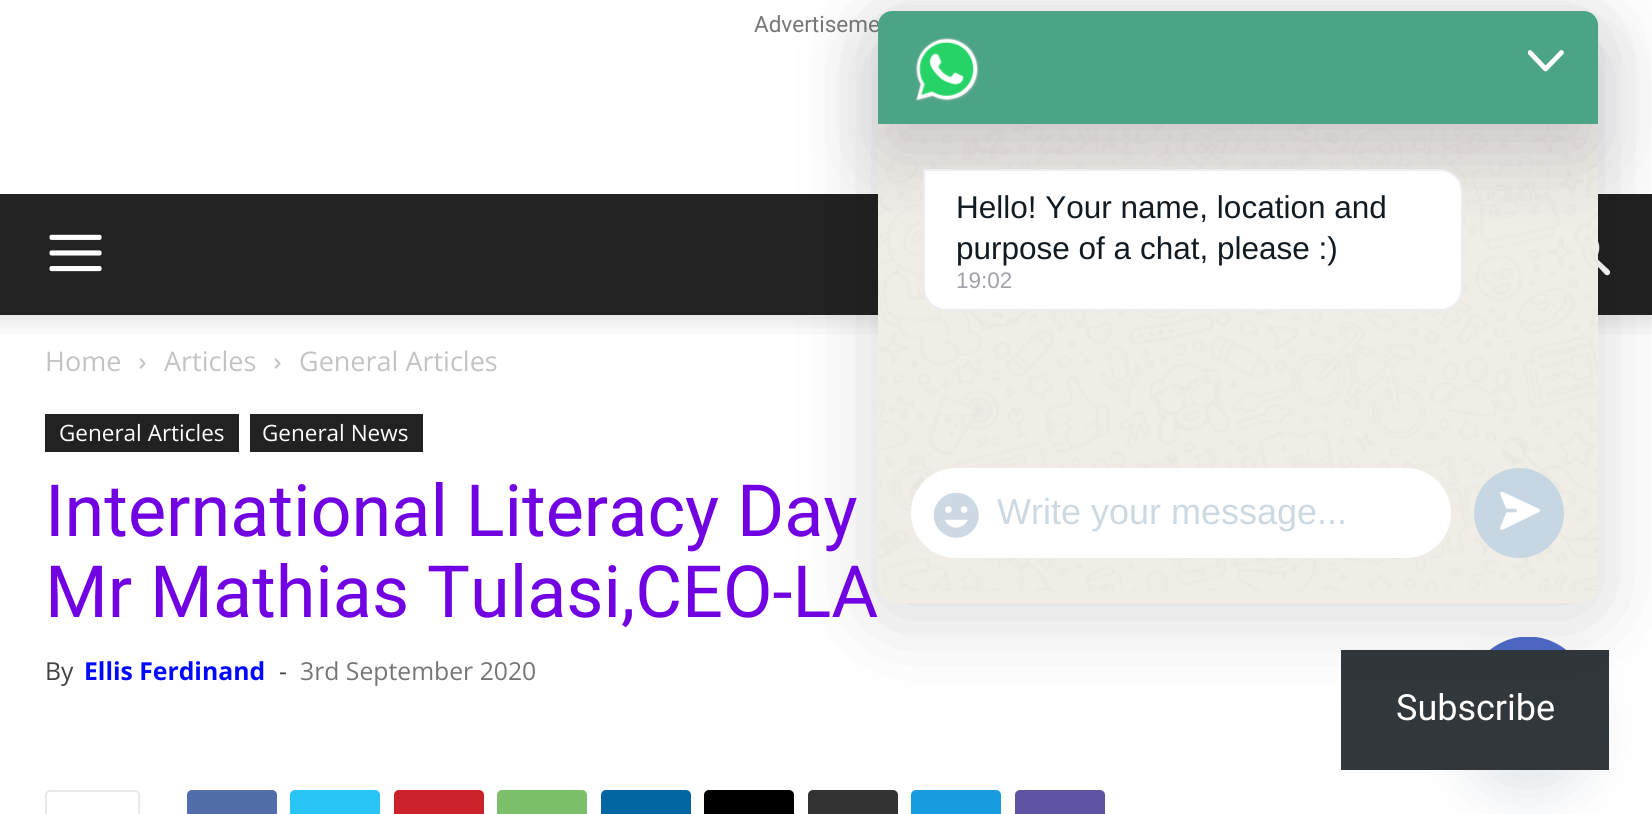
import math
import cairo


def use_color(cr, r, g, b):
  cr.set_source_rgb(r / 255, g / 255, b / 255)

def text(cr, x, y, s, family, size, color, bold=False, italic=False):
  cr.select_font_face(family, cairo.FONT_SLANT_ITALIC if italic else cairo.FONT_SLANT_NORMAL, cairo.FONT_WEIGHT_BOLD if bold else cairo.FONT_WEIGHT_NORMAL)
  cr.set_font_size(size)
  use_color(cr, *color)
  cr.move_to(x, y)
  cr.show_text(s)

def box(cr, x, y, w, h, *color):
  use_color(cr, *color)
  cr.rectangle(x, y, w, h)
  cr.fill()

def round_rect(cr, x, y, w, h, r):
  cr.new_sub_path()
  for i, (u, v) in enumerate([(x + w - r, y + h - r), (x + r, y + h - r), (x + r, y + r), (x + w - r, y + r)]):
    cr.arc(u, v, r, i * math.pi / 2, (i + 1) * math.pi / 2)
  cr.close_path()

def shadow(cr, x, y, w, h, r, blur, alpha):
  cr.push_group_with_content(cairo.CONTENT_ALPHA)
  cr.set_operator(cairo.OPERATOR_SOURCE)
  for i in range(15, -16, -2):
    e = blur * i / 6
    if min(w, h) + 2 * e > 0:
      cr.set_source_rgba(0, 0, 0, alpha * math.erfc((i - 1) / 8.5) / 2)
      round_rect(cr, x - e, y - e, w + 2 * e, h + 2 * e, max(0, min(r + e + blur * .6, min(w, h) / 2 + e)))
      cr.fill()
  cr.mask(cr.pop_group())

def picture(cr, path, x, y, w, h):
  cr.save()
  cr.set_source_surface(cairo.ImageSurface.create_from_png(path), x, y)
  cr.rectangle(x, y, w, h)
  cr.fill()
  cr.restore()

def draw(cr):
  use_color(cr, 255, 255, 255)
  cr.paint()
  box(cr, 0, 194, 1652, 121, 34, 34, 34)
  picture(cr, "img_01.png", 49, 234, 53, 38)
  picture(cr, "img_02.png", 1598, 241, 13, 35)
  picture(cr, "img_03.png", 0, 315, 1652, 19)
  picture(cr, "img_04.png", 139, 358, 7, 11)
  picture(cr, "img_04.png", 274, 358, 7, 11)
  box(cr, 45, 414, 194, 38, 34, 34, 34)
  box(cr, 250, 414, 173, 38, 34, 34, 34)
  round_rect(cr, 46, 791, 93, 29, 4)
  use_color(cr, 233, 233, 233)
  cr.stroke()
  use_color(cr, 81, 110, 171)
  round_rect(cr, 187, 790, 90, 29, 5)
  cr.fill()
  use_color(cr, 41, 197, 246)
  round_rect(cr, 290, 790, 90, 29, 5)
  cr.fill()
  use_color(cr, 202, 33, 42)
  round_rect(cr, 394, 790, 90, 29, 5)
  cr.fill()
  use_color(cr, 123, 191, 106)
  round_rect(cr, 497, 790, 90, 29, 5)
  cr.fill()
  use_color(cr, 2, 102, 160)
  round_rect(cr, 601, 790, 90, 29, 5)
  cr.fill()
  use_color(cr, 0, 0, 0)
  round_rect(cr, 704, 790, 90, 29, 5)
  cr.fill()
  use_color(cr, 51, 51, 51)
  round_rect(cr, 808, 790, 90, 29, 5)
  cr.fill()
  use_color(cr, 23, 156, 222)
  round_rect(cr, 911, 790, 90, 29, 5)
  cr.fill()
  use_color(cr, 93, 84, 164)
  round_rect(cr, 1015, 790, 90, 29, 5)
  cr.fill()
  use_color(cr, 73, 104, 126)
  shadow(cr, 1467, 673, 122, 121, 60.5, 27, 0.16)
  cr.save()
  cr.rectangle(1467, 637, 122, 121)
  cr.clip()
  use_color(cr, 79, 106, 202)
  cr.arc(1528, 697.5, 61, 0, 2 * math.pi)
  cr.fill()
  cr.restore()
  box(cr, 1341, 650, 268, 120, 50, 55, 60)
  use_color(cr, 0, 0, 0)
  shadow(cr, 878, 23, 720, 591, 14, 45, 0.16)
  text(cr, 754, 32, "Advertiseme", "Roboto", 22.5, (118, 118, 118))
  text(cr, 45, 371, "Home", "Open Sans", 27, (195, 195, 195))
  text(cr, 164, 371, "Articles", "Open Sans", 27, (195, 195, 195))
  text(cr, 299, 371, "General Articles", "Open Sans", 27, (195, 195, 195))
  text(cr, 59, 441, "General Articles", "Open Sans", 22.5, (255, 255, 255))
  text(cr, 262, 441, "General News", "Open Sans", 22.5, (255, 255, 255))
  text(cr, 45, 536, "International Literacy Day", "Roboto", 72, (113, 0, 226))
  text(cr, 45, 617, "Mr Mathias Tulasi,CEO-LA", "Roboto", 72, (113, 0, 226))
  text(cr, 45, 680, "By", "Open Sans", 24.75, (68, 68, 68))
  text(cr, 84, 680, "Ellis Ferdinand", "Open Sans", 24.75, (0, 8, 255), bold=True)
  text(cr, 279, 680, "-", "Open Sans", 24.75, (68, 68, 68))
  text(cr, 300, 680, "3rd September 2020", "Open Sans", 24.75, (118, 118, 118))
  use_color(cr, 240, 237, 231)
  round_rect(cr, 878, 11, 720, 592, 18)
  cr.fill()
  picture(cr, "img_06.png", 878, 14, 720, 577)
  use_color(cr, 26, 14, 53)
  shadow(cr, 878, 47, 720, 113, 14, 36, 0.16)
  use_color(cr, 74, 164, 133)
  cr.new_path()
  cr.move_to(892, 11)
  cr.line_to(1584, 11)
  cr.curve_to(1591.5, 11, 1598, 17.5, 1598, 25)
  cr.line_to(1598, 124)
  cr.line_to(878, 124)
  cr.line_to(878, 25)
  cr.curve_to(878, 17.5, 884.5, 11, 892, 11)
  cr.close_path()
  cr.fill()
  cr.save()
  cr.rectangle(1528, 43, 36, 36)
  cr.clip()
  cr.new_path()
  cr.move_to(1530, 52.5)
  cr.line_to(1545.5, 69)
  cr.line_to(1561.5, 52.5)
  use_color(cr, 255, 255, 255)
  cr.set_line_width(4.8)
  cr.set_line_cap(cairo.LINE_CAP_ROUND)
  cr.set_line_join(cairo.LINE_JOIN_ROUND)
  cr.stroke()
  cr.restore()
  picture(cr, "img_05.png", 915, 37, 65, 65)
  use_color(cr, 255, 255, 255)
  cr.new_path()
  cr.move_to(923, 169)
  cr.line_to(1440, 169)
  cr.curve_to(1452.5, 169, 1463, 179.5, 1463, 192)
  cr.line_to(1463, 288)
  cr.curve_to(1463, 300.5, 1452.5, 311, 1440, 311)
  cr.line_to(946, 311)
  cr.curve_to(933.5, 311, 923, 300.5, 923, 288)
  cr.close_path()
  cr.fill()
  cr.new_path()
  cr.move_to(924, 170)
  cr.line_to(1440, 170)
  cr.curve_to(1452, 170, 1462, 180, 1462, 192)
  cr.line_to(1462, 288)
  cr.curve_to(1462, 300, 1452, 310, 1440, 310)
  cr.line_to(946, 310)
  cr.curve_to(934, 310, 924, 300, 924, 288)
  cr.close_path()
  cr.set_source_rgba(0.133, 0.067, 0.278, 0.08)
  cr.stroke()
  text(cr, 956, 218, "Hello! Your name, location and", "Liberation Sans", 31.5, (17, 27, 33))
  text(cr, 956, 259, "purpose of a chat, please :)", "Liberation Sans", 31.5, (17, 27, 33))
  text(cr, 956, 288, "19:02", "Liberation Sans", 22.5, (161, 161, 169))
  use_color(cr, 255, 255, 255)
  round_rect(cr, 911, 468, 540, 90, 45)
  cr.fill()
  picture(cr, "img_07.png", 933, 492, 46, 46)
  text(cr, 997, 524, "Write your message...", "Liberation Sans", 36, (205, 217, 226))
  use_color(cr, 198, 215, 227)
  cr.new_path()
  cr.arc(1519, 513, 45, 0, 2 * math.pi)
  cr.fill()
  use_color(cr, 255, 255, 255)
  cr.new_path()
  cr.move_to(1538, 510.5)
  cr.line_to(1502, 528)
  cr.line_to(1509, 510.5)
  cr.line_to(1502, 493.5)
  cr.close_path()
  cr.fill_preserve()
  cr.set_line_width(3.7)
  cr.set_line_cap(cairo.LINE_CAP_ROUND)
  cr.set_line_join(cairo.LINE_JOIN_ROUND)
  cr.stroke()
  cr.new_path()
  cr.move_to(1515, 510.5)
  cr.line_to(1503, 510.5)
  use_color(cr, 198, 215, 227)
  cr.stroke()
  text(cr, 1396, 720, "Subscribe", "Roboto", 36, (255, 255, 255))


surface = cairo.ImageSurface(cairo.FORMAT_RGB24, 1652, 814)
cr = cairo.Context(surface)
options = cairo.FontOptions()
options.set_hint_metrics(cairo.HINT_METRICS_OFF)
options.set_hint_style(cairo.HINT_STYLE_NONE)
cr.set_font_options(options)
cr.set_miter_limit(4)
draw(cr)
surface.write_to_png("out.png")
